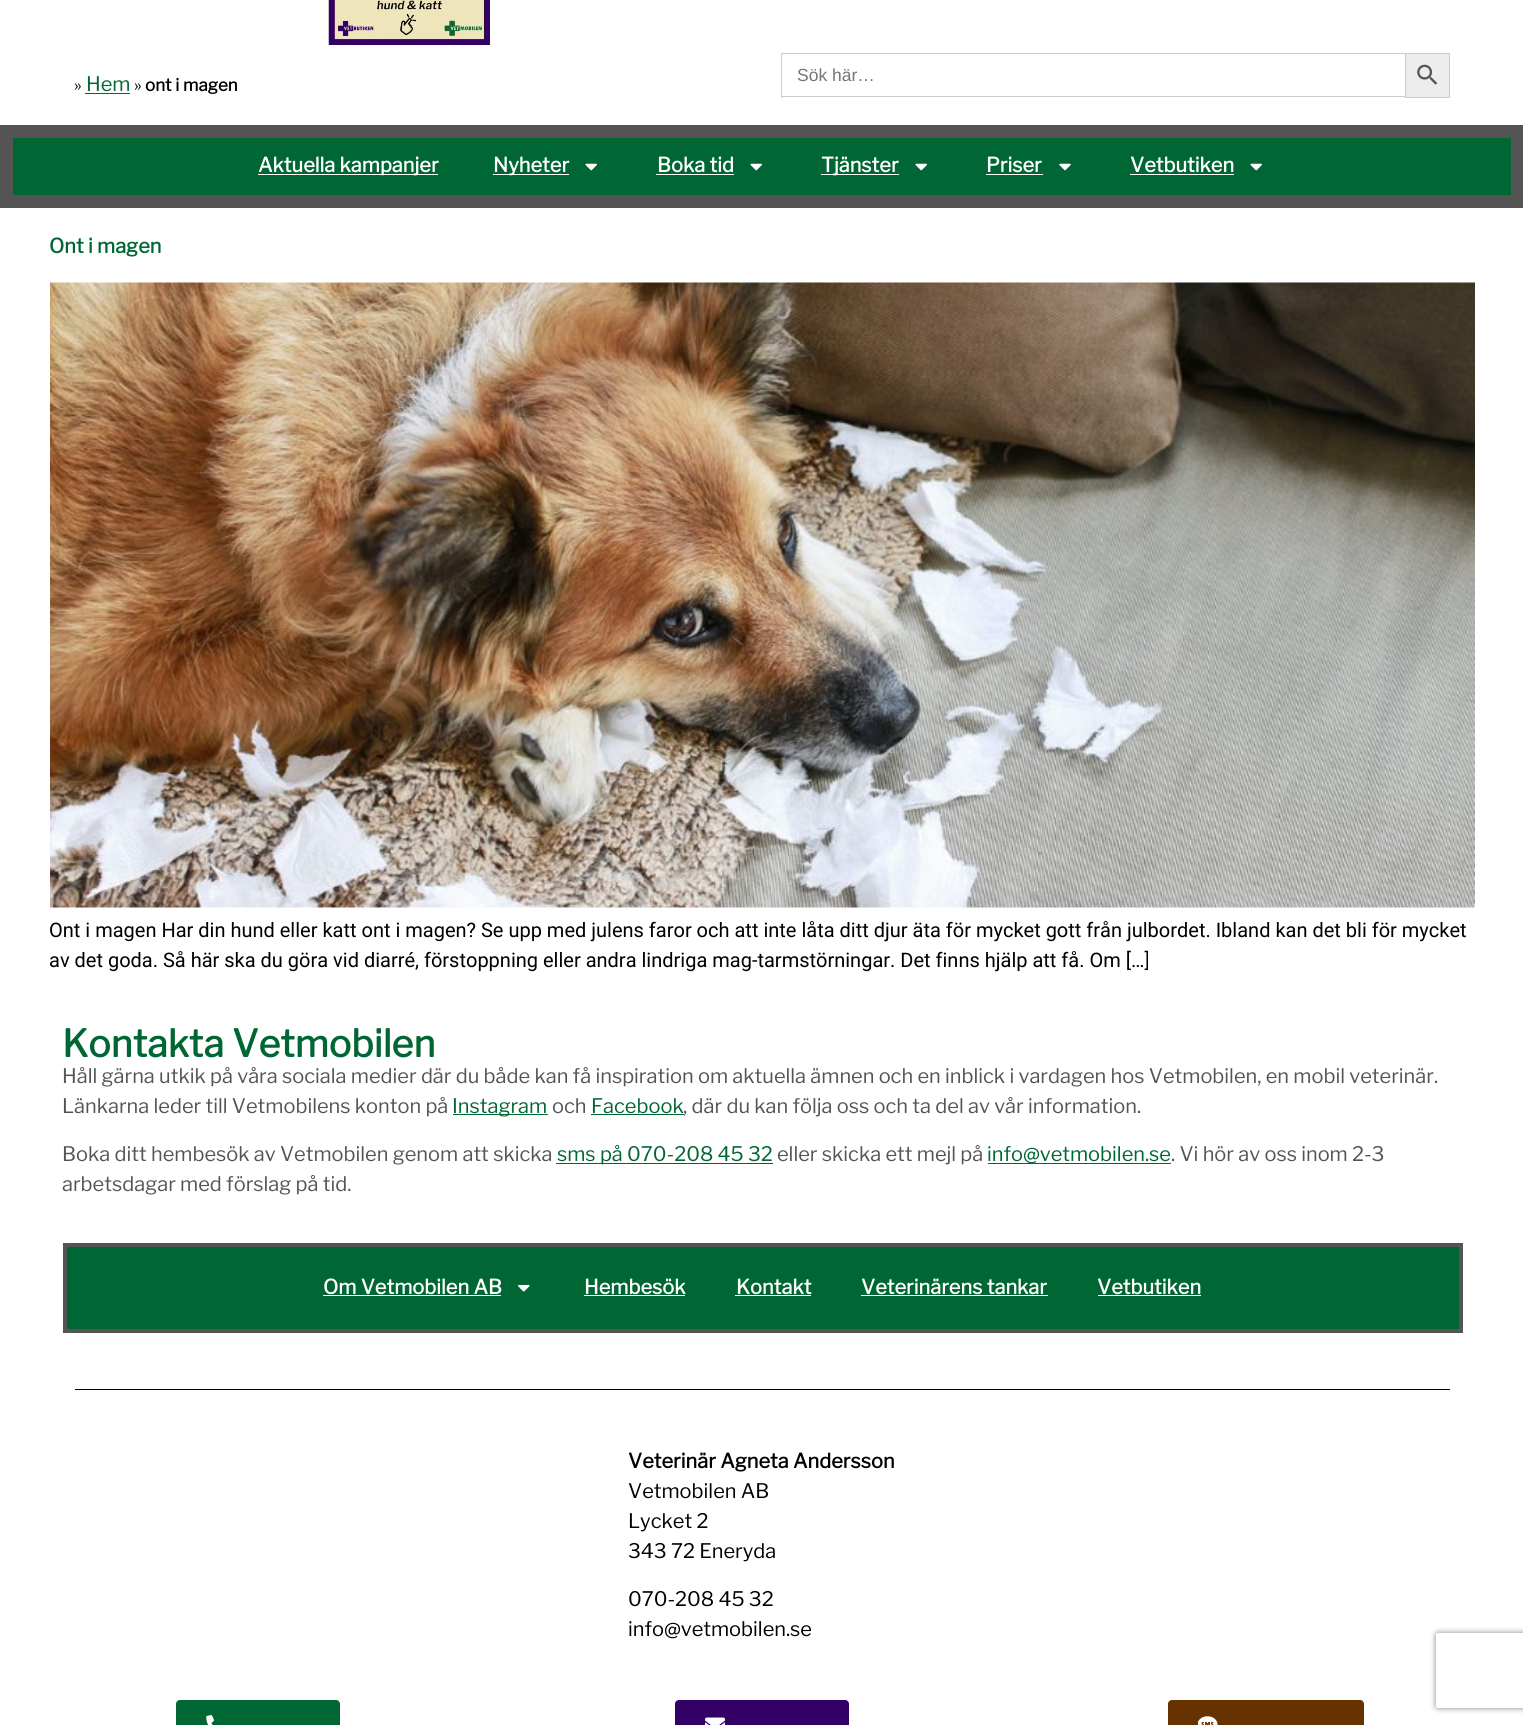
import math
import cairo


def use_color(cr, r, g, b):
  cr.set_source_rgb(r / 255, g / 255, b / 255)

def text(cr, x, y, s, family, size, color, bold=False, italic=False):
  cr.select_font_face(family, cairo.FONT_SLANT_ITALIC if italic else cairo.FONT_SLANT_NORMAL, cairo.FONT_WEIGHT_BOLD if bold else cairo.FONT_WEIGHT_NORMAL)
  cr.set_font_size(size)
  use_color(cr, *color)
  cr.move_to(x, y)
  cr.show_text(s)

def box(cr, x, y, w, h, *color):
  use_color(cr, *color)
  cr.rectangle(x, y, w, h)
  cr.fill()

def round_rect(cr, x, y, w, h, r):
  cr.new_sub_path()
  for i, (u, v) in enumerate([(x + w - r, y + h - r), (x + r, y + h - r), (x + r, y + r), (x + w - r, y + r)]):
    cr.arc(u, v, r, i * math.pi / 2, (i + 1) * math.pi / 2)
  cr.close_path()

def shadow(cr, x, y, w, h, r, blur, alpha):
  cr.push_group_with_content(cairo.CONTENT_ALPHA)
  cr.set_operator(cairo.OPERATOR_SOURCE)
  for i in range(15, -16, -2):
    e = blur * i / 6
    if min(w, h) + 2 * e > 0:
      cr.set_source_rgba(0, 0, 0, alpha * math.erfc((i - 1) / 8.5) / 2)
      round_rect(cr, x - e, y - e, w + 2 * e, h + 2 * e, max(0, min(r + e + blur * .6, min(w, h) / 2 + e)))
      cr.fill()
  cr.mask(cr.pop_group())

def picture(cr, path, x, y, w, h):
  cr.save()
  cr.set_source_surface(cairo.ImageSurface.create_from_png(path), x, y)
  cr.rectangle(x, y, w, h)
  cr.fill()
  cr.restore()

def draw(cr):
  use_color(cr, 255, 255, 255)
  cr.paint()
  picture(cr, "img_01.png", 328, 0, 162, 45)
  box(cr, 85, 93, 45, 1, 0, 102, 51)
  box(cr, 781, 53, 624, 1, 204, 204, 204)
  box(cr, 781, 96, 624, 1, 204, 204, 204)
  box(cr, 781, 53, 1, 45, 204, 204, 204)
  use_color(cr, 237, 237, 237)
  cr.rectangle(1405.5, 53.5, 44, 44)
  cr.fill_preserve()
  use_color(cr, 204, 204, 204)
  cr.set_line_width(1)
  cr.stroke()
  picture(cr, "img_02.png", 1417, 64, 21, 21)
  box(cr, 0, 125, 1523, 83, 84, 84, 84)
  box(cr, 13, 138, 1498, 57, 0, 102, 51)
  box(cr, 258, 174, 180, 1, 255, 255, 255)
  box(cr, 493, 174, 76, 1, 255, 255, 255)
  picture(cr, "img_03.png", 585, 163, 12, 8)
  box(cr, 656, 174, 78, 1, 255, 255, 255)
  picture(cr, "img_03.png", 750, 163, 12, 8)
  box(cr, 821, 174, 78, 1, 255, 255, 255)
  picture(cr, "img_03.png", 915, 163, 12, 8)
  box(cr, 986, 174, 57, 1, 255, 255, 255)
  picture(cr, "img_04.png", 1059, 163, 12, 8)
  box(cr, 1130, 174, 104, 1, 255, 255, 255)
  picture(cr, "img_03.png", 1250, 163, 12, 8)
  picture(cr, "img_05.png", 50, 282, 1425, 626)
  box(cr, 453, 1114, 95, 1, 0, 102, 51)
  box(cr, 591, 1114, 93, 1, 0, 102, 51)
  box(cr, 556, 1163, 217, 1, 0, 102, 51)
  box(cr, 988, 1163, 183, 1, 0, 102, 51)
  cr.rectangle(65, 1245, 1396, 86)
  cr.fill_preserve()
  use_color(cr, 84, 84, 84)
  cr.set_line_width(4)
  cr.stroke()
  box(cr, 323, 1295, 178, 1, 255, 255, 255)
  picture(cr, "img_06.png", 518, 1285, 12, 7)
  box(cr, 584, 1295, 101, 1, 255, 255, 255)
  box(cr, 735, 1295, 76, 1, 255, 255, 255)
  box(cr, 861, 1295, 187, 1, 255, 255, 255)
  box(cr, 1098, 1295, 103, 1, 255, 255, 255)
  box(cr, 75, 1389, 1375, 1, 0, 0, 0)
  use_color(cr, 0, 102, 51)
  round_rect(cr, 176, 1700, 164, 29, 4)
  cr.fill()
  picture(cr, "img_07.png", 206, 1715, 8, 10)
  use_color(cr, 51, 0, 102)
  round_rect(cr, 675, 1700, 174, 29, 4)
  cr.fill()
  picture(cr, "img_08.png", 705, 1717, 20, 8)
  use_color(cr, 102, 51, 0)
  round_rect(cr, 1168, 1700, 196, 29, 4)
  cr.fill()
  picture(cr, "img_09.png", 1198, 1716, 20, 9)
  cr.save()
  cr.set_fill_rule(cairo.FILL_RULE_EVEN_ODD)
  cr.new_path()
  cr.move_to(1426, 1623)
  cr.line_to(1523, 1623)
  cr.line_to(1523, 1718)
  cr.line_to(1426, 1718)
  cr.close_path()
  cr.move_to(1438.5, 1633)
  cr.line_to(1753.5, 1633)
  cr.curve_to(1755, 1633, 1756, 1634, 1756, 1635.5)
  cr.line_to(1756, 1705.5)
  cr.curve_to(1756, 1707, 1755, 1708, 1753.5, 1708)
  cr.line_to(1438.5, 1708)
  cr.curve_to(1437, 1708, 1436, 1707, 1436, 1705.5)
  cr.line_to(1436, 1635.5)
  cr.curve_to(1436, 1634, 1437, 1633, 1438.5, 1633)
  cr.close_path()
  cr.clip()
  use_color(cr, 128, 128, 128)
  shadow(cr, 1436, 1633, 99, 75, 2.5, 3, 1)
  cr.restore()
  text(cr, 74, 91, "»", "Libre Franklin", 17, (0, 0, 0))
  text(cr, 86, 91, "Hem", "Libre Franklin", 20, (0, 102, 51))
  text(cr, 134, 91, "»", "Libre Franklin", 17, (0, 0, 0))
  text(cr, 145, 91, "ont i magen", "Libre Franklin", 17, (0, 0, 0), bold=True)
  text(cr, 797, 81, "Sök här…", "Liberation Sans", 17.5, (117, 117, 117))
  text(cr, 258, 172, "Aktuella kampanjer", "Libre Franklin", 20, (255, 255, 255), bold=True)
  text(cr, 493, 172, "Nyheter", "Libre Franklin", 20, (255, 255, 255), bold=True)
  text(cr, 657, 172, "Boka tid", "Libre Franklin", 20, (255, 255, 255), bold=True)
  text(cr, 821, 172, "Tjänster", "Libre Franklin", 20, (255, 255, 255), bold=True)
  text(cr, 986, 172, "Priser", "Libre Franklin", 20, (255, 255, 255), bold=True)
  text(cr, 1130, 172, "Vetbutiken", "Libre Franklin", 20, (255, 255, 255), bold=True)
  text(cr, 49, 253, "Ont i magen", "Libre Franklin", 20, (0, 102, 51), bold=True)
  text(cr, 49, 937, "Ont i magen Har din hund eller katt ont i magen? Se upp med julens faror och att inte låta ditt djur äta för mycket gott från julbordet. Ibland kan det bli för mycket", "Roboto", 20, (0, 0, 0))
  text(cr, 49, 967, "av det goda. Så här ska du göra vid diarré, förstoppning eller andra lindriga mag-tarmstörningar. Det finns hjälp att få. Om […]", "Roboto", 20, (0, 0, 0))
  text(cr, 62, 1057, "Kontakta Vetmobilen", "Libre Franklin", 37.5, (0, 102, 51), bold=True)
  text(cr, 62, 1083, "Håll gärna utkik på våra sociala medier där du både kan få inspiration om aktuella ämnen och en inblick i vardagen hos Vetmobilen, en mobil veterinär.", "Libre Franklin", 20, (84, 84, 84))
  text(cr, 62, 1113, "Länkarna leder till Vetmobilens konton på", "Libre Franklin", 20, (84, 84, 84))
  text(cr, 452, 1113, "Instagram", "Libre Franklin", 20, (0, 102, 51))
  text(cr, 552, 1113, "och", "Libre Franklin", 20, (84, 84, 84))
  text(cr, 591, 1113, "Facebook", "Libre Franklin", 20, (0, 102, 51))
  text(cr, 683, 1113, ", där du kan följa oss och ta del av vår information.", "Libre Franklin", 20, (84, 84, 84))
  text(cr, 62, 1161, "Boka ditt hembesök av Vetmobilen genom att skicka", "Libre Franklin", 20, (84, 84, 84))
  text(cr, 557, 1161, "sms på 070-208 45 32", "Libre Franklin", 20, (0, 102, 51))
  text(cr, 777, 1161, "eller skicka ett mejl på", "Libre Franklin", 20, (84, 84, 84))
  text(cr, 987, 1161, "info@vetmobilen.se", "Libre Franklin", 20, (0, 102, 51))
  text(cr, 1171, 1161, ". Vi hör av oss inom 2-3", "Libre Franklin", 20, (84, 84, 84))
  text(cr, 62, 1191, "arbetsdagar med förslag på tid.", "Libre Franklin", 20, (84, 84, 84))
  text(cr, 323, 1294, "Om Vetmobilen AB", "Libre Franklin", 20, (255, 255, 255), bold=True)
  text(cr, 584, 1294, "Hembesök", "Libre Franklin", 20, (255, 255, 255), bold=True)
  text(cr, 736, 1294, "Kontakt", "Libre Franklin", 20, (255, 255, 255), bold=True)
  text(cr, 861, 1294, "Veterinärens tankar", "Libre Franklin", 20, (255, 255, 255), bold=True)
  text(cr, 1097, 1294, "Vetbutiken", "Libre Franklin", 20, (255, 255, 255), bold=True)
  text(cr, 628, 1468, "Veterinär Agneta Andersson", "Libre Franklin", 20, (0, 0, 0), bold=True)
  text(cr, 628, 1498, "Vetmobilen AB", "Libre Franklin", 20, (0, 0, 0))
  text(cr, 628, 1528, "Lycket 2", "Libre Franklin", 20, (0, 0, 0))
  text(cr, 628, 1558, "343 72 Eneryda", "Libre Franklin", 20, (0, 0, 0))
  text(cr, 628, 1606, "070-208 45 32", "Libre Franklin", 20, (0, 0, 0))
  text(cr, 628, 1636, "info@vetmobilen.se", "Libre Franklin", 20, (0, 0, 0))


surface = cairo.ImageSurface(cairo.FORMAT_RGB24, 1523, 1725)
cr = cairo.Context(surface)
options = cairo.FontOptions()
options.set_hint_metrics(cairo.HINT_METRICS_OFF)
options.set_hint_style(cairo.HINT_STYLE_NONE)
cr.set_font_options(options)
cr.set_miter_limit(4)
draw(cr)
surface.write_to_png("out.png")
